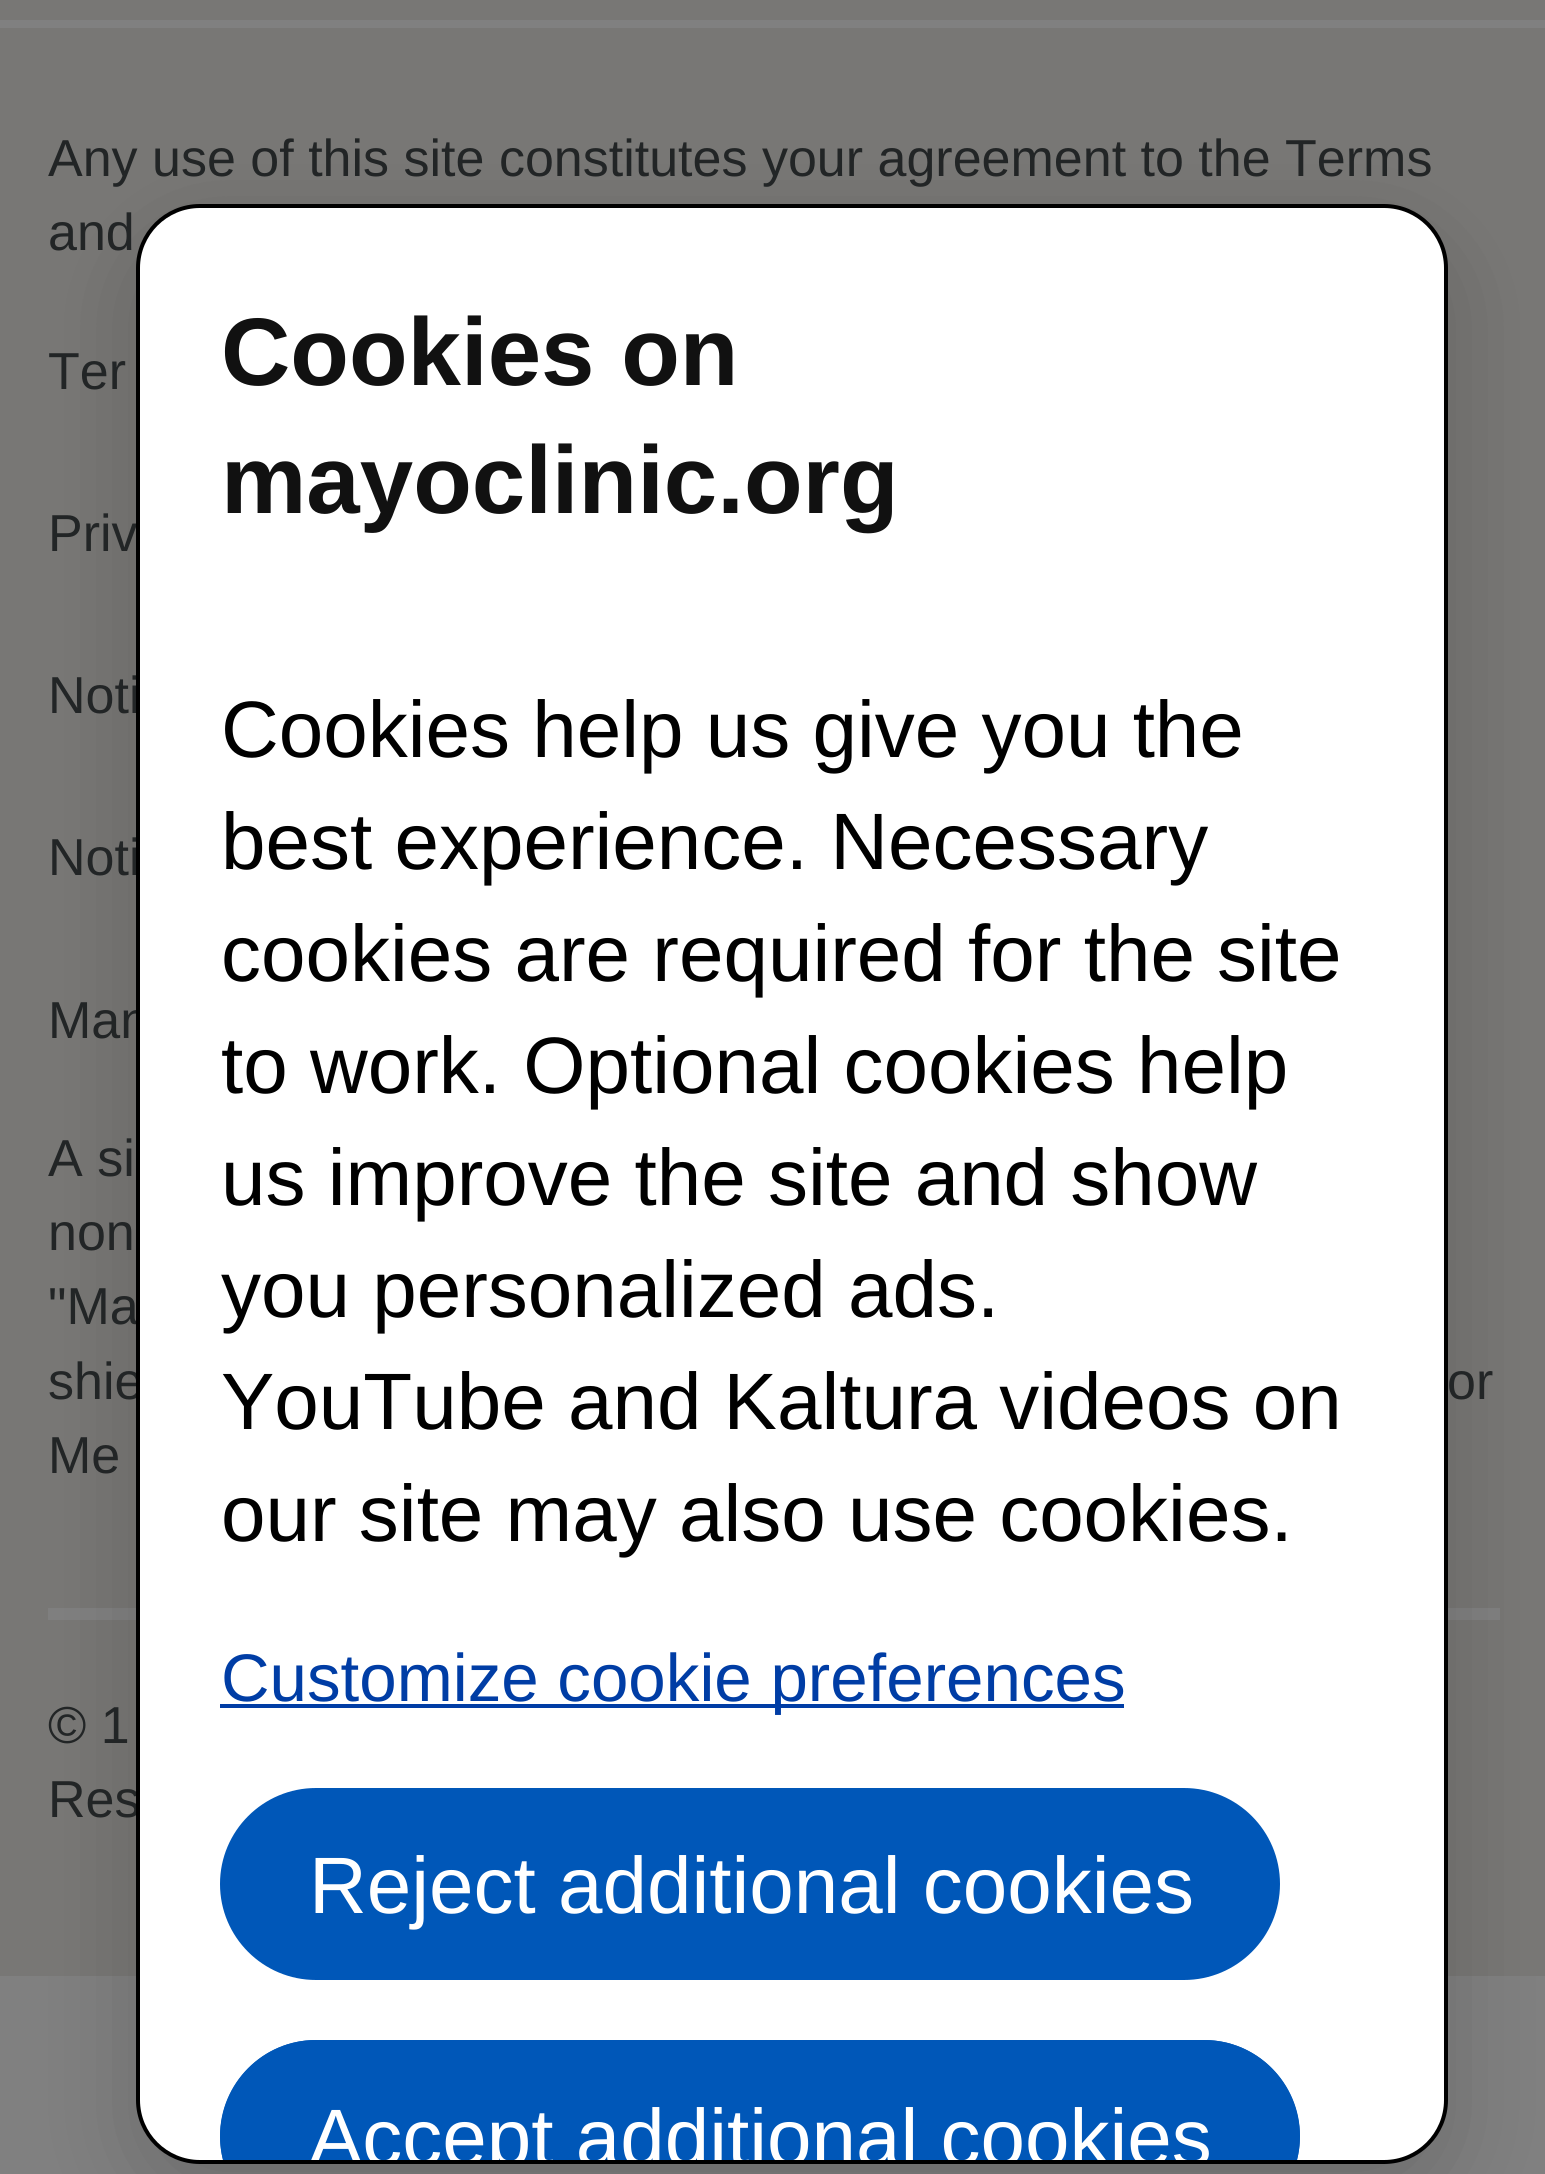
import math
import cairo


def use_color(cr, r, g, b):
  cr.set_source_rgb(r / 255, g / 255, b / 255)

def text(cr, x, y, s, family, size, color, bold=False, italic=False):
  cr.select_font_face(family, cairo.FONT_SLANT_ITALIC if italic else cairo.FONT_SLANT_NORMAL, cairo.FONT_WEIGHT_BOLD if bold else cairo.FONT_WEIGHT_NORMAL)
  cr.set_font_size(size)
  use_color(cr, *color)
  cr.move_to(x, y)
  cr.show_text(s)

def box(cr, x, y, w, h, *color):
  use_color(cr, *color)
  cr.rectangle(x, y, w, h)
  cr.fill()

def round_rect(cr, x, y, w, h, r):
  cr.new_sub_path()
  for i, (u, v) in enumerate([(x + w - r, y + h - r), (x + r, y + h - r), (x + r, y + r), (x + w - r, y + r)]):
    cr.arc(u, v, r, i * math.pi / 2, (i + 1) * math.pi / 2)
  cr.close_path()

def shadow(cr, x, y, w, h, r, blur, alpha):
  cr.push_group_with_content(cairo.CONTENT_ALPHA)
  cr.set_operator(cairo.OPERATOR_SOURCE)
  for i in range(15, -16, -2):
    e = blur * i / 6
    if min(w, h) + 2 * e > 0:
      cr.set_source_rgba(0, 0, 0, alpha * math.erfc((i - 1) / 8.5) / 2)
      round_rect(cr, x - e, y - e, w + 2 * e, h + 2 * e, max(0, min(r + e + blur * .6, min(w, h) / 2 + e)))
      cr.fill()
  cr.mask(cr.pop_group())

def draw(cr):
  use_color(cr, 128, 128, 128)
  cr.paint()
  box(cr, 0, 0, 1545, 20, 120, 119, 117)
  box(cr, 0, 28, 1545, 1948, 120, 119, 117)
  box(cr, 48, 1608, 1452, 12, 128, 128, 128)
  use_color(cr, 0, 0, 0)
  shadow(cr, 136, 236, 1312, 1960, 64, 48, 0.16)
  text(cr, 48, 176, "Any use of this site constitutes your agreement to the Terms", "Liberation Sans", 52, (34, 37, 38))
  text(cr, 48, 250, "and", "Liberation Sans", 52, (34, 37, 38))
  text(cr, 48, 389, "Ter", "Liberation Sans", 52, (34, 37, 38))
  text(cr, 48, 551, "Priv", "Liberation Sans", 52, (34, 37, 38))
  text(cr, 48, 713, "Noti", "Liberation Sans", 52, (34, 37, 38))
  text(cr, 48, 875, "Noti", "Liberation Sans", 52, (34, 37, 38))
  text(cr, 48, 1038, "Man", "Liberation Sans", 52, (34, 37, 38))
  text(cr, 48, 1176, "A si", "Liberation Sans", 52, (34, 37, 38))
  text(cr, 48, 1250, "non", "Liberation Sans", 52, (34, 37, 38))
  text(cr, 48, 1324, "\"Ma", "Liberation Sans", 52, (34, 37, 38))
  text(cr, 48, 1399, "shie", "Liberation Sans", 52, (34, 37, 38))
  text(cr, 1447, 1399, "or", "Liberation Sans", 52, (34, 37, 38))
  text(cr, 48, 1473, "Me", "Liberation Sans", 52, (34, 37, 38))
  text(cr, 48, 1743, "© 1", "Liberation Sans", 52, (34, 37, 38))
  text(cr, 48, 1817, "Res", "Liberation Sans", 52, (34, 37, 38))
  use_color(cr, 255, 255, 255)
  round_rect(cr, 138, 206, 1308, 1956, 62)
  cr.fill_preserve()
  use_color(cr, 0, 0, 0)
  cr.set_line_width(4)
  cr.stroke()
  text(cr, 221, 385, "Cookies on", "Liberation Sans", 96, (17, 17, 17), bold=True)
  text(cr, 221, 513, "mayoclinic.org", "Liberation Sans", 96, (17, 17, 17), bold=True)
  text(cr, 221, 757, "Cookies help us give you the", "Liberation Sans", 80, (0, 0, 0))
  text(cr, 221, 869, "best experience. Necessary", "Liberation Sans", 80, (0, 0, 0))
  text(cr, 221, 981, "cookies are required for the site", "Liberation Sans", 80, (0, 0, 0))
  text(cr, 221, 1093, "to work. Optional cookies help", "Liberation Sans", 80, (0, 0, 0))
  text(cr, 221, 1205, "us improve the site and show", "Liberation Sans", 80, (0, 0, 0))
  text(cr, 221, 1317, "you personalized ads.", "Liberation Sans", 80, (0, 0, 0))
  text(cr, 221, 1429, "YouTube and Kaltura videos on", "Liberation Sans", 80, (0, 0, 0))
  text(cr, 221, 1541, "our site may also use cookies.", "Liberation Sans", 80, (0, 0, 0))
  box(cr, 220, 1704, 904, 4, 0, 61, 165)
  text(cr, 221, 1701, "Customize cookie preferences", "Liberation Sans", 67.25, (0, 61, 165))
  use_color(cr, 0, 87, 184)
  round_rect(cr, 224, 1792, 1052, 184, 92)
  cr.fill_preserve()
  cr.set_line_width(8)
  cr.stroke()
  text(cr, 309, 1913, "Reject additional cookies", "Liberation Sans", 80, (255, 255, 255))
  cr.save()
  round_rect(cr, 140, 208, 1304, 1952, 60)
  cr.clip()
  use_color(cr, 0, 87, 184)
  round_rect(cr, 220, 2040, 1080, 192, 96)
  cr.fill()
  cr.restore()
  use_color(cr, 0, 87, 184)
  cr.new_path()
  cr.move_to(316, 2040)
  cr.curve_to(253, 2040, 208, 2100, 223, 2160)
  cr.line_to(231, 2160)
  cr.curve_to(229, 2152, 228, 2144, 228, 2136)
  cr.curve_to(228, 2087, 267, 2048, 316, 2048)
  cr.line_to(1204, 2048)
  cr.curve_to(1253, 2048, 1292, 2087, 1292, 2136)
  cr.curve_to(1292, 2144, 1291, 2152, 1289, 2160)
  cr.line_to(1297, 2160)
  cr.curve_to(1312, 2100, 1267, 2040, 1204, 2040)
  cr.close_path()
  cr.fill()
  cr.save()
  round_rect(cr, 140, 208, 1304, 1952, 60)
  cr.clip()
  text(cr, 309, 2165, "Accept additional cookies", "Liberation Sans", 80, (255, 255, 255))
  cr.restore()


surface = cairo.ImageSurface(cairo.FORMAT_RGB24, 1545, 2174)
cr = cairo.Context(surface)
options = cairo.FontOptions()
options.set_hint_metrics(cairo.HINT_METRICS_OFF)
options.set_hint_style(cairo.HINT_STYLE_NONE)
cr.set_font_options(options)
cr.set_miter_limit(4)
draw(cr)
surface.write_to_png("out.png")
